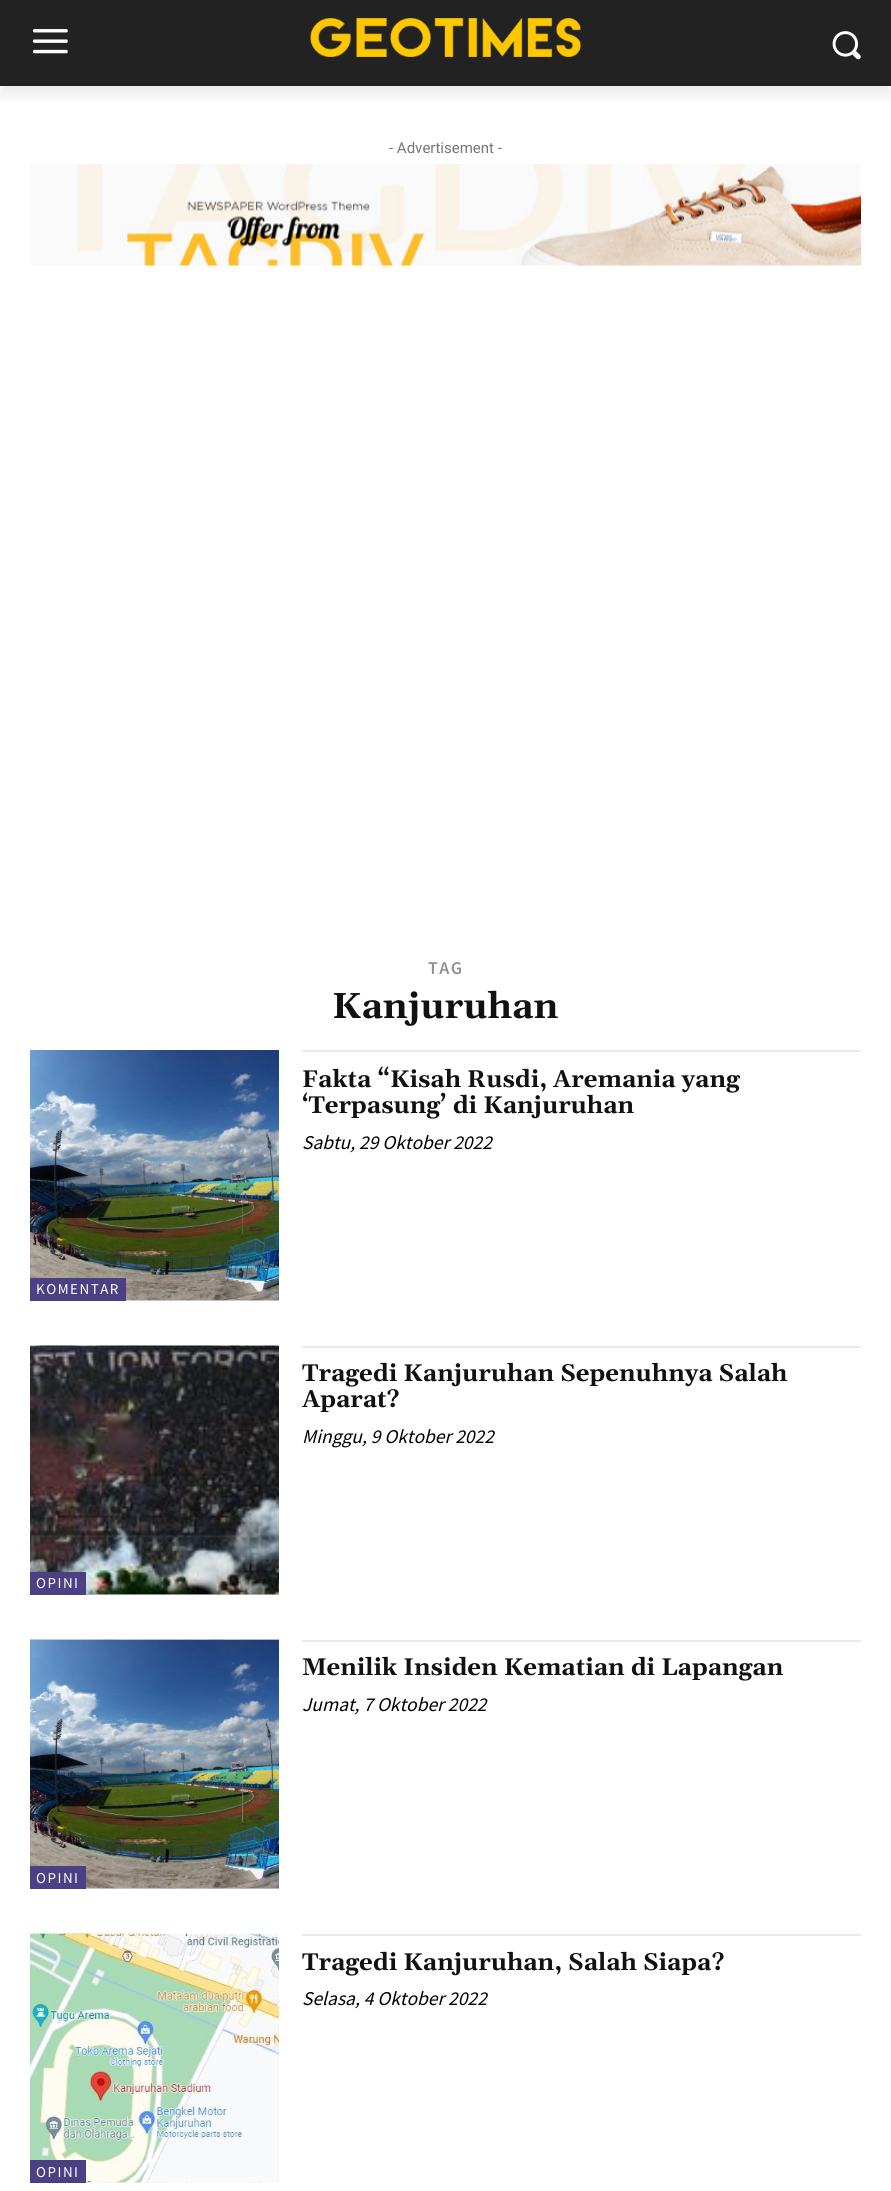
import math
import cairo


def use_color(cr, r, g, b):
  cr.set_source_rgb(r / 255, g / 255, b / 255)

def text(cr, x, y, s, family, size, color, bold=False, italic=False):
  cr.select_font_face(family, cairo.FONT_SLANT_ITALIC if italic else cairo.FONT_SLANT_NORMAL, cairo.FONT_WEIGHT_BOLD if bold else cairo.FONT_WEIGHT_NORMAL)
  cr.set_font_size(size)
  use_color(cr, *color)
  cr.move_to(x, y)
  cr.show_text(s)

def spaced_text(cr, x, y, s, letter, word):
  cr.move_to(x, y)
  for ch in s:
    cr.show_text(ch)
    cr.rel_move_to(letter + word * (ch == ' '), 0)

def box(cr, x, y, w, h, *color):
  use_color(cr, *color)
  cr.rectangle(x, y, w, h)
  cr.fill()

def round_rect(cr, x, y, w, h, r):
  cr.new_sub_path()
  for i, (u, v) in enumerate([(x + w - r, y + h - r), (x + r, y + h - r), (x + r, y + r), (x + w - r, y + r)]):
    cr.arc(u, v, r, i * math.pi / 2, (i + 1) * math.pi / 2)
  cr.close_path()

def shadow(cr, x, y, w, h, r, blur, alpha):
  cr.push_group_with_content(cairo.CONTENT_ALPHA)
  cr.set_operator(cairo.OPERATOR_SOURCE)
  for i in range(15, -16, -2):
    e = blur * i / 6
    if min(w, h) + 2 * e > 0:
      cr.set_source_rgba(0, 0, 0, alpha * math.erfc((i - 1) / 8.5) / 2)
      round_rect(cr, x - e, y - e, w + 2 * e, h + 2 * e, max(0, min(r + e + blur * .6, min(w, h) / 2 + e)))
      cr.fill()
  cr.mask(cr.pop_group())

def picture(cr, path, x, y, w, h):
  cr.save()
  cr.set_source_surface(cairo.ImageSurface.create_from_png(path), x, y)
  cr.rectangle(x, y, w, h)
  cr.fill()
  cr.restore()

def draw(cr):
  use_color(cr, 255, 255, 255)
  cr.paint()
  box(cr, 0, 0, 891, 86, 34, 34, 34)
  picture(cr, "img_01.png", 33, 29, 35, 25)
  picture(cr, "img_02.png", 310, 18, 271, 39)
  picture(cr, "img_03.png", 832, 31, 29, 29)
  cr.save()
  cr.set_fill_rule(cairo.FILL_RULE_EVEN_ODD)
  cr.new_path()
  cr.move_to(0, 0)
  cr.line_to(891, 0)
  cr.line_to(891, 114)
  cr.line_to(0, 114)
  cr.close_path()
  cr.move_to(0, 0)
  cr.line_to(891, 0)
  cr.line_to(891, 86)
  cr.line_to(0, 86)
  cr.close_path()
  cr.clip()
  use_color(cr, 0, 0, 0)
  shadow(cr, 0, 9, 891, 86, 0, 6, 0.08)
  cr.restore()
  picture(cr, "img_04.png", 30, 164, 831, 102)
  box(cr, 302, 1050, 559, 2, 234, 234, 234)
  picture(cr, "img_05.png", 30, 1050, 249, 251)
  box(cr, 30, 1278, 96, 23, 76, 64, 132)
  box(cr, 302, 1346, 559, 2, 234, 234, 234)
  picture(cr, "img_06.png", 30, 1345, 249, 250)
  box(cr, 30, 1572, 56, 23, 76, 64, 132)
  box(cr, 302, 1640, 559, 2, 234, 234, 234)
  picture(cr, "img_07.png", 30, 1639, 249, 250)
  box(cr, 30, 1866, 56, 23, 76, 64, 132)
  box(cr, 302, 1934, 559, 2, 234, 234, 234)
  picture(cr, "img_08.png", 30, 1933, 249, 250)
  box(cr, 30, 2160, 56, 23, 76, 64, 132)
  text(cr, 389, 153, "- Advertisement -", "Roboto", 15, (118, 118, 118))
  cr.select_font_face("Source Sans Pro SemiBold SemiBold")
  cr.set_font_size(18)
  use_color(cr, 145, 145, 145)
  spaced_text(cr, 428, 974, "TAG", 1.5, 0)
  text(cr, 332, 1018, "Kanjuruhan", "Gelasio", 36, (17, 17, 17), bold=True)
  text(cr, 302, 1087, "Fakta “Kisah Rusdi, Aremania yang", "Gelasio", 24, (17, 17, 17), bold=True)
  text(cr, 302, 1113, "‘Terpasung’ di Kanjuruhan", "Gelasio", 24, (17, 17, 17), bold=True)
  text(cr, 302, 1149, "Sabtu, 29 Oktober 2022", "Source Sans Pro", 19.5, (0, 0, 0), italic=True)
  cr.select_font_face("Source Sans Pro")
  cr.set_font_size(15)
  use_color(cr, 255, 255, 255)
  spaced_text(cr, 36, 1294, "KOMENTAR", 1.5, 0)
  text(cr, 302, 1381, "Tragedi Kanjuruhan Sepenuhnya Salah", "Gelasio", 24, (17, 17, 17), bold=True)
  text(cr, 302, 1407, "Aparat?", "Gelasio", 24, (17, 17, 17), bold=True)
  text(cr, 302, 1443, "Minggu, 9 Oktober 2022", "Source Sans Pro", 19.5, (0, 0, 0), italic=True)
  cr.select_font_face("Source Sans Pro")
  cr.set_font_size(15)
  use_color(cr, 255, 255, 255)
  spaced_text(cr, 36, 1588, "OPINI", 1.5, 0)
  text(cr, 302, 1675, "Menilik Insiden Kematian di Lapangan", "Gelasio", 24, (17, 17, 17), bold=True)
  text(cr, 302, 1711, "Jumat, 7 Oktober 2022", "Source Sans Pro", 19.5, (0, 0, 0), italic=True)
  cr.select_font_face("Source Sans Pro")
  cr.set_font_size(15)
  use_color(cr, 255, 255, 255)
  spaced_text(cr, 36, 1883, "OPINI", 1.5, 0)
  text(cr, 302, 1970, "Tragedi Kanjuruhan, Salah Siapa?", "Gelasio", 24, (17, 17, 17), bold=True)
  text(cr, 302, 2005, "Selasa, 4 Oktober 2022", "Source Sans Pro", 19.5, (0, 0, 0), italic=True)
  cr.select_font_face("Source Sans Pro")
  cr.set_font_size(15)
  use_color(cr, 255, 255, 255)
  spaced_text(cr, 36, 2177, "OPINI", 1.5, 0)


surface = cairo.ImageSurface(cairo.FORMAT_RGB24, 891, 2191)
cr = cairo.Context(surface)
options = cairo.FontOptions()
options.set_hint_metrics(cairo.HINT_METRICS_OFF)
options.set_hint_style(cairo.HINT_STYLE_NONE)
cr.set_font_options(options)
cr.set_miter_limit(4)
draw(cr)
surface.write_to_png("out.png")
